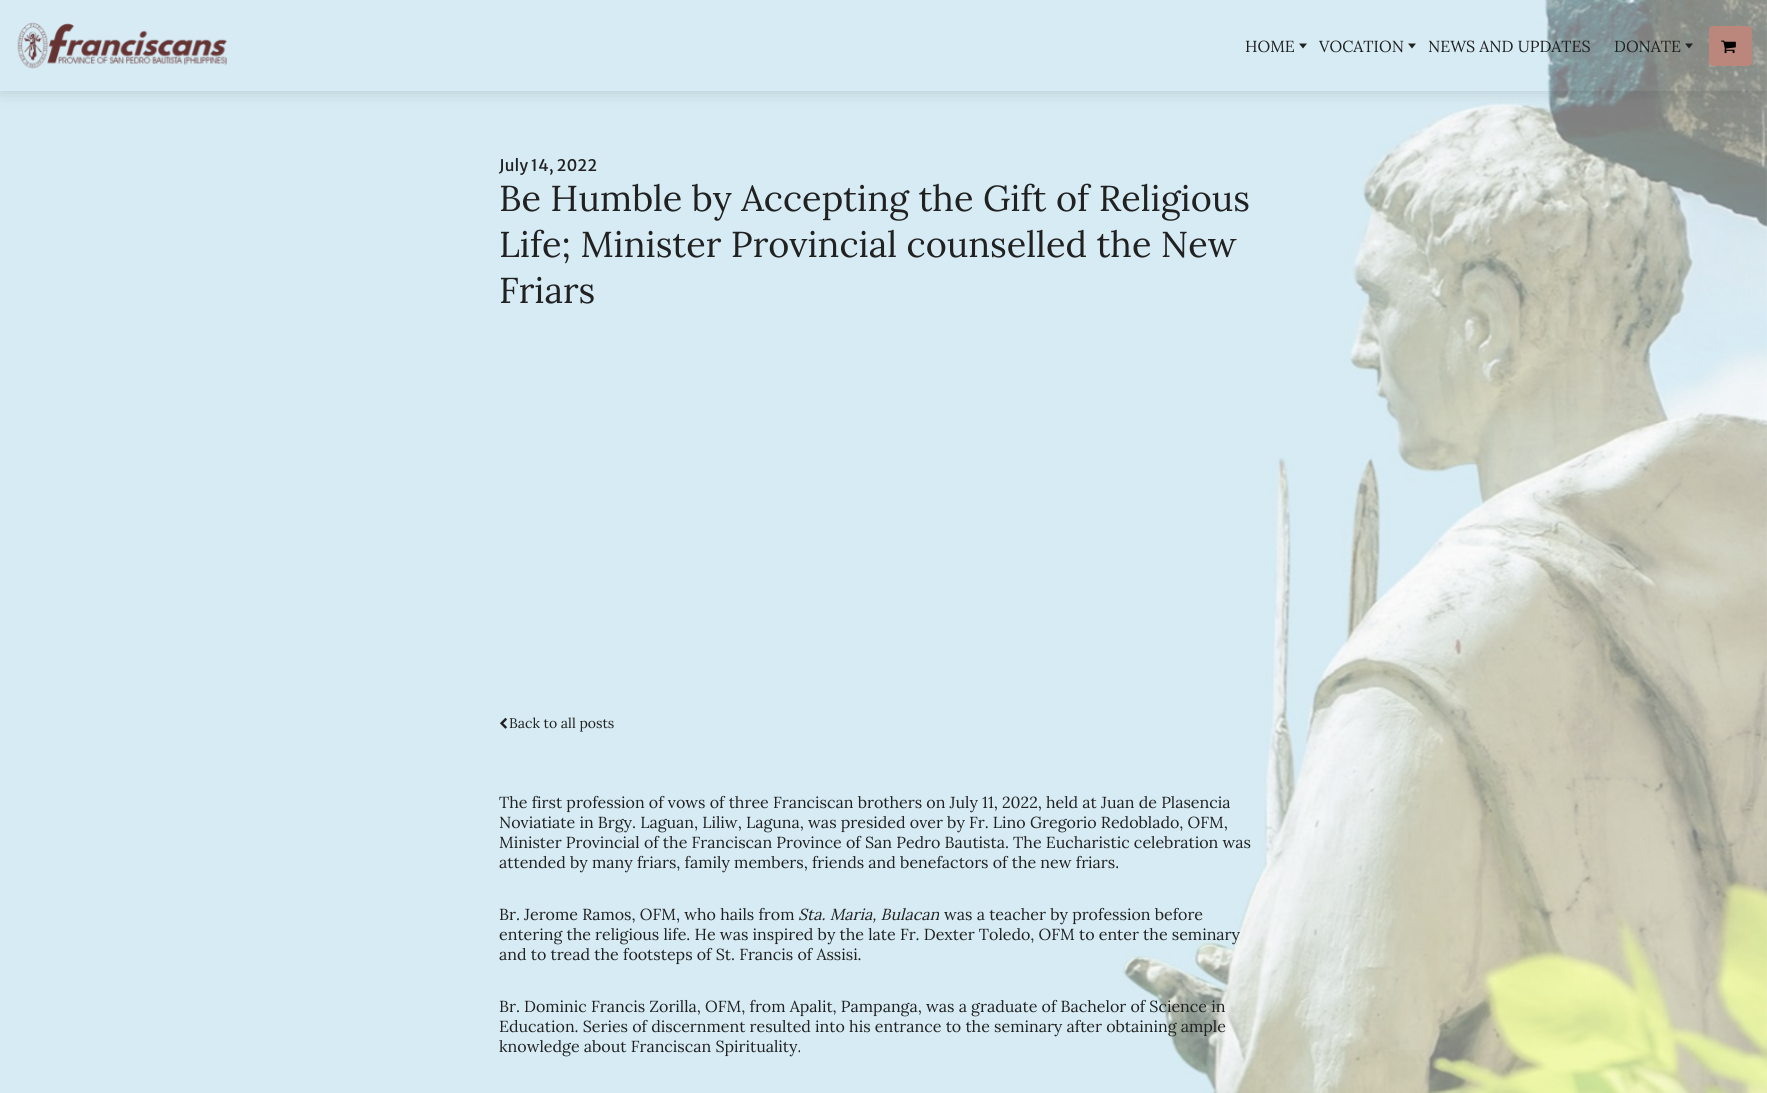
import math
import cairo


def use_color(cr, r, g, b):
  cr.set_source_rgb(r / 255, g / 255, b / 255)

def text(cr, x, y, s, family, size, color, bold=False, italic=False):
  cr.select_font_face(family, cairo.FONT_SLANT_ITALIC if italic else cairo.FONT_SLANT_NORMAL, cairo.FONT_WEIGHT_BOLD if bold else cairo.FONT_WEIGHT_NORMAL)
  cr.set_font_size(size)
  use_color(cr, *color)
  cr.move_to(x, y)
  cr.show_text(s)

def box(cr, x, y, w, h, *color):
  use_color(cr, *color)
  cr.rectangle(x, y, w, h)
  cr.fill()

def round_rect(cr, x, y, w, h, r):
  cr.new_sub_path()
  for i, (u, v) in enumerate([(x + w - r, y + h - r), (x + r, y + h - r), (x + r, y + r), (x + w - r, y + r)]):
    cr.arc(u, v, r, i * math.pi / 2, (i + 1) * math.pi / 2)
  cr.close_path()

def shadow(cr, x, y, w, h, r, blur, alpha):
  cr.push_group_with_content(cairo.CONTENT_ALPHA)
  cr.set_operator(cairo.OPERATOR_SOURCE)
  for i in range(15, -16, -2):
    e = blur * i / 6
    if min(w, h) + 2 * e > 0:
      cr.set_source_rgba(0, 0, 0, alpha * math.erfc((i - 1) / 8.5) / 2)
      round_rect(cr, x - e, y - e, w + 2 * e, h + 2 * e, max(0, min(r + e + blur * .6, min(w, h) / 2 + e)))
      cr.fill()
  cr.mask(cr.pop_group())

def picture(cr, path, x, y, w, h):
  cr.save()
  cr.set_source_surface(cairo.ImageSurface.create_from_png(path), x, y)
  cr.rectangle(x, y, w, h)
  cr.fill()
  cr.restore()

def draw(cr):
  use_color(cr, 255, 255, 255)
  cr.paint()
  picture(cr, "img_04.png", 0, 91, 1767, 1002)
  use_color(cr, 0, 0, 0)
  shadow(cr, 0, 2, 1767, 91, 0, 8, 0.12)
  box(cr, 0, 0, 1767, 91, 255, 255, 255)
  picture(cr, "img_01.png", 0, 0, 1767, 91)
  picture(cr, "img_02.png", 17, 22, 210, 47)
  use_color(cr, 33, 33, 33)
  cr.new_path()
  cr.move_to(1299, 43.5)
  cr.line_to(1307, 43.5)
  cr.line_to(1303, 48.5)
  cr.close_path()
  cr.fill()
  cr.new_path()
  cr.move_to(1408, 43.5)
  cr.line_to(1416, 43.5)
  cr.line_to(1412, 48.5)
  cr.close_path()
  cr.fill()
  cr.new_path()
  cr.move_to(1685, 43.5)
  cr.line_to(1693, 43.5)
  cr.line_to(1689, 48.5)
  cr.close_path()
  cr.fill()
  use_color(cr, 187, 135, 124)
  round_rect(cr, 1709, 26, 43, 40, 4)
  cr.fill()
  picture(cr, "img_03.png", 1721, 40, 15, 14)
  picture(cr, "img_05.png", 500, 717, 7, 12)
  text(cr, 1245, 52, "HOME", "Lora", 16, (33, 33, 33))
  text(cr, 1319, 52, "VOCATION", "Lora", 16, (33, 33, 33))
  text(cr, 1428, 52, "NEWS AND UPDATES", "Lora", 16, (33, 33, 33))
  text(cr, 1614, 52, "DONATE", "Lora", 16, (33, 33, 33))
  text(cr, 499, 171, "July 14, 2022", "Merriweather Sans", 16, (33, 33, 33))
  text(cr, 499, 211, "Be Humble by Accepting the Gift of Religious", "Lora", 36, (33, 33, 33))
  text(cr, 499, 257, "Life; Minister Provincial counselled the New", "Lora", 36, (33, 33, 33))
  text(cr, 499, 303, "Friars", "Lora", 36, (33, 33, 33))
  text(cr, 509, 728, "Back to all posts", "Lora", 14, (33, 33, 33))
  text(cr, 499, 808, "The first profession of vows of three Franciscan brothers on July 11, 2022, held at Juan de Plasencia", "Lora", 16, (33, 33, 33))
  text(cr, 499, 828, "Noviatiate in Brgy. Laguan, Liliw, Laguna, was presided over by Fr. Lino Gregorio Redoblado, OFM,", "Lora", 16, (33, 33, 33))
  text(cr, 499, 848, "Minister Provincial of the Franciscan Province of San Pedro Bautista. The Eucharistic celebration was", "Lora", 16, (33, 33, 33))
  text(cr, 499, 868, "attended by many friars, family members, friends and benefactors of the new friars.", "Lora", 16, (33, 33, 33))
  text(cr, 499, 920, "Br. Jerome Ramos, OFM, who hails from", "Lora", 16, (33, 33, 33))
  text(cr, 798, 920, "Sta. Maria, Bulacan", "Lora", 16, (33, 33, 33), italic=True)
  text(cr, 944, 920, "was a teacher by profession before", "Lora", 16, (33, 33, 33))
  text(cr, 499, 940, "entering the religious life. He was inspired by the late Fr. Dexter Toledo, OFM to enter the seminary", "Lora", 16, (33, 33, 33))
  text(cr, 499, 960, "and to tread the footsteps of St. Francis of Assisi.", "Lora", 16, (33, 33, 33))
  text(cr, 499, 1012, "Br. Dominic Francis Zorilla, OFM, from Apalit, Pampanga, was a graduate of Bachelor of Science in", "Lora", 16, (33, 33, 33))
  text(cr, 499, 1032, "Education. Series of discernment resulted into his entrance to the seminary after obtaining ample", "Lora", 16, (33, 33, 33))
  text(cr, 499, 1052, "knowledge about Franciscan Spirituality.", "Lora", 16, (33, 33, 33))


surface = cairo.ImageSurface(cairo.FORMAT_RGB24, 1767, 1093)
cr = cairo.Context(surface)
options = cairo.FontOptions()
options.set_hint_metrics(cairo.HINT_METRICS_OFF)
options.set_hint_style(cairo.HINT_STYLE_NONE)
cr.set_font_options(options)
cr.set_miter_limit(4)
draw(cr)
surface.write_to_png("out.png")
